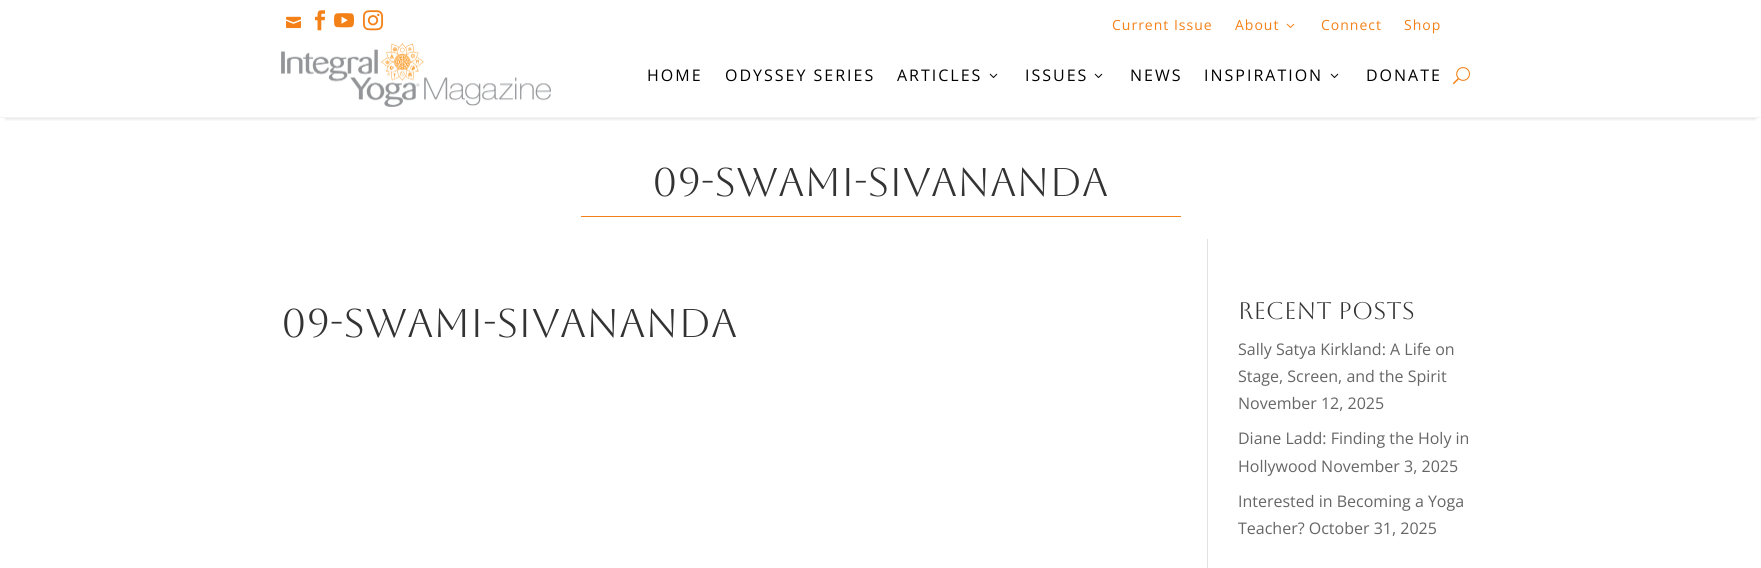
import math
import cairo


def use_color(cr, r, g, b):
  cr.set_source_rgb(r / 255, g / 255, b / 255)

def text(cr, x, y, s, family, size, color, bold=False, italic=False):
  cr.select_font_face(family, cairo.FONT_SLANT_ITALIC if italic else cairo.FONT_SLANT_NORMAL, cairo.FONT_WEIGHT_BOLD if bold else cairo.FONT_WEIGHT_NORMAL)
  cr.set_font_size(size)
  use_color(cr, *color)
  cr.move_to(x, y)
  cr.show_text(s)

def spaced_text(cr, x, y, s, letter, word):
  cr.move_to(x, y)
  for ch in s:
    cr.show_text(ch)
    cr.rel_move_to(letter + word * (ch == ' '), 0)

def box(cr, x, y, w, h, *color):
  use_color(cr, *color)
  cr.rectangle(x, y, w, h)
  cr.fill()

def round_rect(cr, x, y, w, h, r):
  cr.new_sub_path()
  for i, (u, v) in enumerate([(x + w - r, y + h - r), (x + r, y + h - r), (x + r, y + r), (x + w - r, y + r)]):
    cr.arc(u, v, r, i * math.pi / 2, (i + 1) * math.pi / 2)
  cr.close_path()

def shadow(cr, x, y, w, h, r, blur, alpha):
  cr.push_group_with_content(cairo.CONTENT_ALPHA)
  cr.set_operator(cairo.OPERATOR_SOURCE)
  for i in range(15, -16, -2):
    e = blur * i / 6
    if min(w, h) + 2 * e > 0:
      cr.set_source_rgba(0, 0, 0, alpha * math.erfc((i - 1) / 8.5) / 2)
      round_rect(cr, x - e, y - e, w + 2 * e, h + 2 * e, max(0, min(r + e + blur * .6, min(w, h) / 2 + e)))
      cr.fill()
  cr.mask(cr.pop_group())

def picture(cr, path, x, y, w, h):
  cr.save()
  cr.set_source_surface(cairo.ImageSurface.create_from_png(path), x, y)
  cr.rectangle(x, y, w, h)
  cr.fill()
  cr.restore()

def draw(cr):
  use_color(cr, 255, 255, 255)
  cr.paint()
  cr.save()
  cr.rectangle(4, 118, 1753, 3)
  cr.clip()
  use_color(cr, 0, 0, 0)
  shadow(cr, 6, 11, 1749, 106, 0, 2.5, 0.3)
  cr.restore()
  box(cr, 0, 117, 1761, 1, 243, 243, 243)
  picture(cr, "img_01.png", 286, 16, 15, 13)
  picture(cr, "img_02.png", 315, 10, 10, 21)
  picture(cr, "img_03.png", 334, 13, 20, 15)
  picture(cr, "img_04.png", 363, 10, 20, 21)
  picture(cr, "img_05.png", 1286, 23, 9, 5)
  picture(cr, "img_06.png", 281, 43, 270, 64)
  picture(cr, "img_07.png", 989, 73, 9, 5)
  picture(cr, "img_07.png", 1094, 73, 9, 5)
  picture(cr, "img_07.png", 1330, 73, 9, 5)
  picture(cr, "img_08.png", 1453, 67, 17, 18)
  box(cr, 581, 216, 600, 1, 243, 129, 24)
  box(cr, 1207, 239, 1, 329, 226, 226, 226)
  cr.select_font_face("Open Sans")
  cr.set_font_size(14)
  use_color(cr, 243, 129, 24)
  spaced_text(cr, 1112, 30, "Current Issue", 1, 0)
  spaced_text(cr, 1235, 30, "About", 1, 0)
  spaced_text(cr, 1321, 30, "Connect", 1, 0)
  spaced_text(cr, 1404, 30, "Shop", 1, 0)
  cr.set_font_size(16)
  use_color(cr, 0, 0, 0)
  spaced_text(cr, 647, 81, "HOME", 2, 0)
  spaced_text(cr, 725, 81, "ODYSSEY SERIES", 2, 0)
  spaced_text(cr, 897, 81, "ARTICLES", 2, 0)
  spaced_text(cr, 1025, 81, "ISSUES", 2, 0)
  spaced_text(cr, 1130, 81, "NEWS", 2, 0)
  spaced_text(cr, 1204, 81, "INSPIRATION", 2, 0)
  spaced_text(cr, 1366, 81, "DONATE", 2, 0)
  text(cr, 652, 196, "09-swami-sivananda", "Aboreto", 40, (51, 51, 51))
  text(cr, 281, 337, "09-swami-sivananda", "Aboreto", 40, (51, 51, 51))
  text(cr, 1238, 319, "Recent Posts", "Aboreto", 24, (51, 51, 51))
  text(cr, 1238, 355, "Sally Satya Kirkland: A Life on", "Open Sans", 16, (102, 102, 102))
  text(cr, 1238, 382, "Stage, Screen, and the Spirit", "Open Sans", 16, (102, 102, 102))
  text(cr, 1238, 409, "November 12, 2025", "Open Sans", 16, (102, 102, 102))
  text(cr, 1238, 444, "Diane Ladd: Finding the Holy in", "Open Sans", 16, (102, 102, 102))
  text(cr, 1238, 472, "Hollywood November 3, 2025", "Open Sans", 16, (102, 102, 102))
  text(cr, 1238, 507, "Interested in Becoming a Yoga", "Open Sans", 16, (102, 102, 102))
  text(cr, 1238, 534, "Teacher? October 31, 2025", "Open Sans", 16, (102, 102, 102))


surface = cairo.ImageSurface(cairo.FORMAT_RGB24, 1761, 568)
cr = cairo.Context(surface)
options = cairo.FontOptions()
options.set_hint_metrics(cairo.HINT_METRICS_OFF)
options.set_hint_style(cairo.HINT_STYLE_NONE)
cr.set_font_options(options)
cr.set_miter_limit(4)
draw(cr)
surface.write_to_png("out.png")
